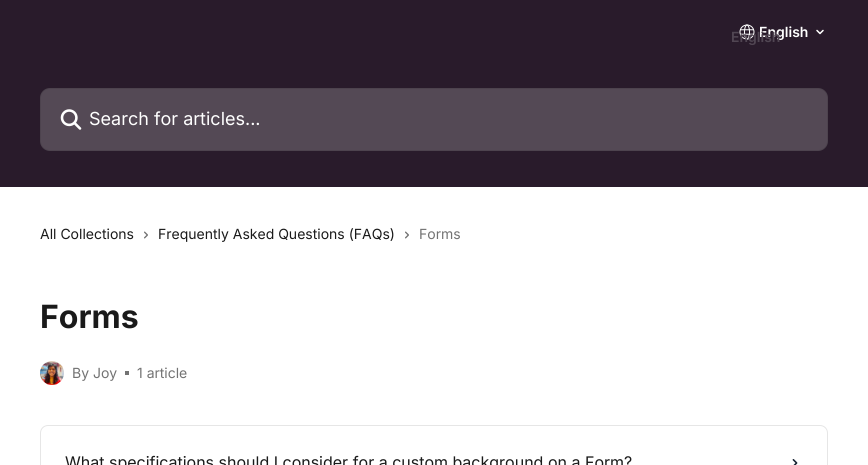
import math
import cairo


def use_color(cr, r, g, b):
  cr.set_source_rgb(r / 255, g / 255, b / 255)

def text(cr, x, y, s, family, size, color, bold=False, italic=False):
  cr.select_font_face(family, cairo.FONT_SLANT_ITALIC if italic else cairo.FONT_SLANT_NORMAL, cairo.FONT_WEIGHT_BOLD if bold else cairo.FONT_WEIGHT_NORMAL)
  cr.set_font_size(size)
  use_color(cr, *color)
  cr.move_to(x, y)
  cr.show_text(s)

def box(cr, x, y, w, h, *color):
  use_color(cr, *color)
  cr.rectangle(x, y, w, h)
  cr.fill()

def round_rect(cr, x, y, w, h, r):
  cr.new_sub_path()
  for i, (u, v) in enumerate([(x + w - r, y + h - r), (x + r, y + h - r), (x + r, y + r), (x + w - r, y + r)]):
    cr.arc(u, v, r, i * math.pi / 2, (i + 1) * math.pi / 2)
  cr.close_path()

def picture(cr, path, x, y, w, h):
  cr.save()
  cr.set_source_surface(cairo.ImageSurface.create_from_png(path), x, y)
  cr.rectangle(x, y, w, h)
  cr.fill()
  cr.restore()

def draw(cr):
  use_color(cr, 255, 255, 255)
  cr.paint()
  box(cr, 0, 0, 868, 187, 41, 27, 43)
  picture(cr, "img_01.png", 739, 24, 16, 16)
  cr.new_path()
  cr.move_to(817, 30.5)
  cr.line_to(820, 33.5)
  cr.line_to(823, 30.5)
  use_color(cr, 255, 255, 255)
  cr.set_line_width(1.5)
  cr.set_line_cap(cairo.LINE_CAP_ROUND)
  cr.set_line_join(cairo.LINE_JOIN_ROUND)
  cr.stroke()
  use_color(cr, 84, 73, 85)
  round_rect(cr, 40, 88, 788, 63, 10)
  cr.fill()
  round_rect(cr, 40.5, 88.5, 787, 62, 9.5)
  cr.set_source_rgba(0, 0, 0, 0.08)
  cr.set_line_width(1)
  cr.set_line_cap(cairo.LINE_CAP_BUTT)
  cr.set_line_join(cairo.LINE_JOIN_MITER)
  cr.stroke()
  picture(cr, "img_02.png", 60, 109, 22, 21)
  picture(cr, "img_03.png", 144, 231, 4, 8)
  picture(cr, "img_03.png", 405, 231, 4, 8)
  picture(cr, "img_04.png", 40, 361, 24, 24)
  box(cr, 125, 371, 4, 4, 115, 115, 115)
  round_rect(cr, 40.5, 425.5, 787, 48, 7.5)
  use_color(cr, 230, 230, 230)
  cr.stroke()
  picture(cr, "img_05.png", 792, 459, 6, 6)
  text(cr, 759, 37, "English", "Inter SemiBold", 14, (255, 255, 255))
  text(cr, 731, 42, "English", "Inter SemiBold", 14, (81, 70, 83))
  text(cr, 89, 125, "Search for articles...", "Inter", 18, (255, 255, 255))
  text(cr, 40, 239, "All Collections", "Inter", 14, (26, 26, 26))
  text(cr, 158, 239, "Frequently Asked Questions (FAQs)", "Inter", 14, (26, 26, 26))
  text(cr, 419, 239, "Forms", "Inter", 14, (115, 115, 115))
  text(cr, 40, 328, "Forms", "Inter", 32, (26, 26, 26), bold=True)
  text(cr, 72, 378, "By Joy", "Inter", 14, (115, 115, 115))
  text(cr, 137, 378, "1 article", "Inter", 14, (115, 115, 115))
  text(cr, 65, 468, "What specifications should I consider for a custom background on a Form?", "Inter", 16, (26, 26, 26))


surface = cairo.ImageSurface(cairo.FORMAT_RGB24, 868, 465)
cr = cairo.Context(surface)
options = cairo.FontOptions()
options.set_hint_metrics(cairo.HINT_METRICS_OFF)
options.set_hint_style(cairo.HINT_STYLE_NONE)
cr.set_font_options(options)
cr.set_miter_limit(4)
draw(cr)
surface.write_to_png("out.png")
